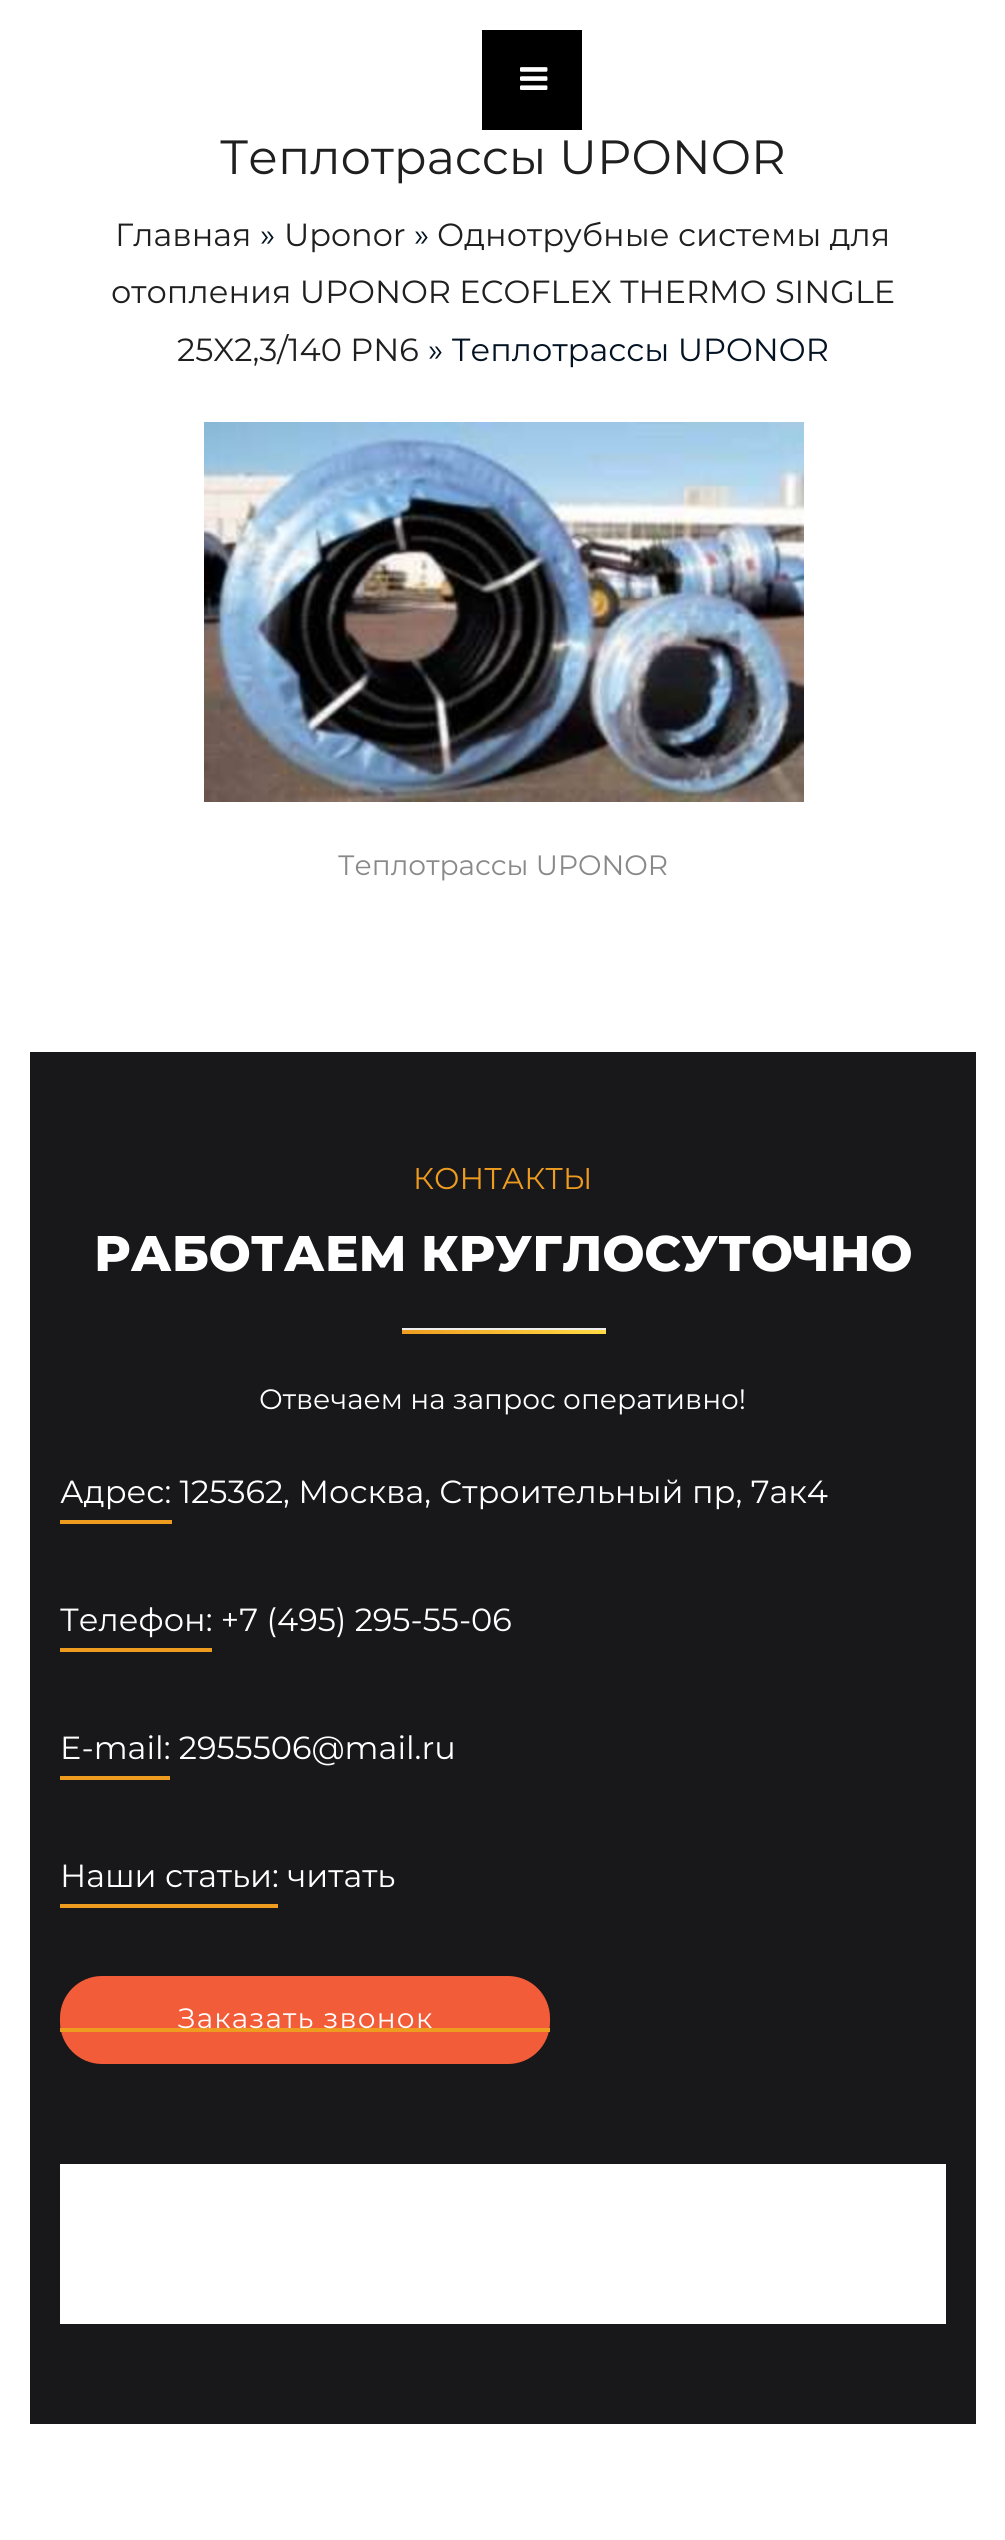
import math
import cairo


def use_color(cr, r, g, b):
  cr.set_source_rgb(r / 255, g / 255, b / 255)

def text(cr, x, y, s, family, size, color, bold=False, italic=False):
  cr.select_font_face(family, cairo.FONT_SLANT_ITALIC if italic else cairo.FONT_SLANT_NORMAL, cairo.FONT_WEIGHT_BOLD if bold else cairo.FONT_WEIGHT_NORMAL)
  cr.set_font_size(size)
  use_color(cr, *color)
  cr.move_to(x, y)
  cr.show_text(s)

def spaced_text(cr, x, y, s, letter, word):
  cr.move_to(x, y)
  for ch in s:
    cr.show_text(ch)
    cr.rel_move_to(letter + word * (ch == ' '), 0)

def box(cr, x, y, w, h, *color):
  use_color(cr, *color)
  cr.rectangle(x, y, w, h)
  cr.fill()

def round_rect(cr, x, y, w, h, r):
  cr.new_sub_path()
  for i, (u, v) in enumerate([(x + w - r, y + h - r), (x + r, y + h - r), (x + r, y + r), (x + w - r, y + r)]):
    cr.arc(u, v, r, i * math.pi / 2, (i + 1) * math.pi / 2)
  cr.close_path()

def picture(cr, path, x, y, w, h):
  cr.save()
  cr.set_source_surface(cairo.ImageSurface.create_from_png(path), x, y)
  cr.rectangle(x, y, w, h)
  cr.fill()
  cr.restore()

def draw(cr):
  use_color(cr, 255, 255, 255)
  cr.paint()
  box(cr, 482, 30, 100, 100, 0, 0, 0)
  picture(cr, "img_01.png", 520, 67, 28, 23)
  picture(cr, "img_02.png", 204, 422, 600, 380)
  box(cr, 30, 1052, 946, 1372, 24, 23, 26)
  gradient = cairo.LinearGradient(402, 1332, 606, 1332)
  gradient.add_color_stop_rgba(0, 0.933, 0.612, 0.125, 1)
  gradient.add_color_stop_rgba(1, 1, 0.855, 0.267, 1)
  cr.set_source(gradient)
  cr.rectangle(402, 1330, 204, 4)
  cr.fill()
  box(cr, 402, 1328, 204, 2, 238, 238, 238)
  box(cr, 60, 1520, 112, 4, 238, 156, 32)
  box(cr, 60, 1648, 152, 4, 238, 156, 32)
  box(cr, 60, 1776, 110, 4, 238, 156, 32)
  box(cr, 60, 1904, 218, 4, 238, 156, 32)
  use_color(cr, 243, 92, 57)
  round_rect(cr, 60, 1976, 490, 88, 42)
  cr.fill()
  box(cr, 60, 2028, 490, 4, 238, 156, 32)
  box(cr, 60, 2164, 886, 160, 255, 255, 255)
  text(cr, 220, 174, "Теплотрассы UPONOR", "Montserrat", 48, (31, 31, 31))
  text(cr, 115, 246, "Главная", "Montserrat", 32, (31, 31, 31))
  text(cr, 260, 246, "»", "Montserrat", 32, (3, 19, 35))
  text(cr, 284, 246, "Uponor", "Montserrat", 32, (31, 31, 31))
  text(cr, 414, 246, "»", "Montserrat", 32, (3, 19, 35))
  text(cr, 437, 246, "Однотрубные системы для", "Montserrat", 32, (31, 31, 31))
  text(cr, 111, 303, "отопления UPONOR ECOFLEX THERMO SINGLE", "Montserrat", 32, (31, 31, 31))
  text(cr, 177, 361, "25X2,3/140 PN6", "Montserrat", 32, (31, 31, 31))
  text(cr, 428, 361, "» Теплотрассы UPONOR", "Montserrat", 32, (3, 19, 35))
  text(cr, 338, 875, "Теплотрассы UPONOR", "Montserrat", 28, (137, 137, 137))
  text(cr, 413, 1189, "КОНТАКТЫ", "Montserrat", 30, (238, 156, 32))
  text(cr, 94, 1271, "РАБОТАЕМ КРУГЛОСУТОЧНО", "Montserrat ExtraBold", 50, (255, 255, 255))
  text(cr, 259, 1409, "Отвечаем на запрос оперативно!", "Montserrat", 28, (255, 255, 255))
  text(cr, 60, 1503, "Адрес: 125362, Москва, Строительный пр, 7ак4", "Montserrat", 32, (255, 255, 255))
  text(cr, 60, 1631, "Телефон: +7 (495) 295-55-06", "Montserrat", 32, (255, 255, 255))
  text(cr, 60, 1759, "E-mail: 2955506@mail.ru", "Montserrat", 32, (255, 255, 255))
  text(cr, 60, 1887, "Наши статьи: читать", "Montserrat", 32, (255, 255, 255))
  cr.set_font_size(28)
  spaced_text(cr, 178, 2028, "Заказать звонок", 1.25, 0)


surface = cairo.ImageSurface(cairo.FORMAT_RGB24, 1005, 2540)
cr = cairo.Context(surface)
options = cairo.FontOptions()
options.set_hint_metrics(cairo.HINT_METRICS_OFF)
options.set_hint_style(cairo.HINT_STYLE_NONE)
cr.set_font_options(options)
cr.set_miter_limit(4)
draw(cr)
surface.write_to_png("out.png")
